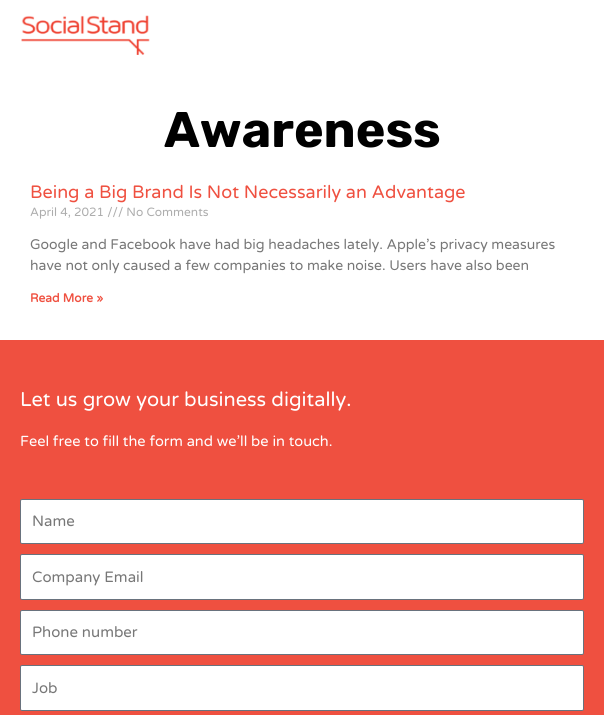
import math
import cairo


def use_color(cr, r, g, b):
  cr.set_source_rgb(r / 255, g / 255, b / 255)

def text(cr, x, y, s, family, size, color, bold=False, italic=False):
  cr.select_font_face(family, cairo.FONT_SLANT_ITALIC if italic else cairo.FONT_SLANT_NORMAL, cairo.FONT_WEIGHT_BOLD if bold else cairo.FONT_WEIGHT_NORMAL)
  cr.set_font_size(size)
  use_color(cr, *color)
  cr.move_to(x, y)
  cr.show_text(s)

def box(cr, x, y, w, h, *color):
  use_color(cr, *color)
  cr.rectangle(x, y, w, h)
  cr.fill()

def round_rect(cr, x, y, w, h, r):
  cr.new_sub_path()
  for i, (u, v) in enumerate([(x + w - r, y + h - r), (x + r, y + h - r), (x + r, y + r), (x + w - r, y + r)]):
    cr.arc(u, v, r, i * math.pi / 2, (i + 1) * math.pi / 2)
  cr.close_path()

def picture(cr, path, x, y, w, h):
  cr.save()
  cr.set_source_surface(cairo.ImageSurface.create_from_png(path), x, y)
  cr.rectangle(x, y, w, h)
  cr.fill()
  cr.restore()

def draw(cr):
  use_color(cr, 255, 255, 255)
  cr.paint()
  picture(cr, "img_01.png", 21, 15, 129, 40)
  box(cr, 0, 340, 604, 375, 239, 80, 64)
  use_color(cr, 255, 255, 255)
  round_rect(cr, 20.5, 499.5, 563, 44, 1.5)
  cr.fill_preserve()
  use_color(cr, 105, 114, 125)
  cr.set_line_width(1)
  cr.stroke()
  use_color(cr, 255, 255, 255)
  round_rect(cr, 20.5, 554.5, 563, 45, 1.5)
  cr.fill_preserve()
  use_color(cr, 105, 114, 125)
  cr.stroke()
  use_color(cr, 255, 255, 255)
  round_rect(cr, 20.5, 610.5, 563, 44, 1.5)
  cr.fill_preserve()
  use_color(cr, 105, 114, 125)
  cr.stroke()
  use_color(cr, 255, 255, 255)
  round_rect(cr, 20.5, 665.5, 563, 45, 1.5)
  cr.fill_preserve()
  use_color(cr, 105, 114, 125)
  cr.stroke()
  text(cr, 164, 147, "Awareness", "Rubik Light", 50, (0, 0, 0))
  text(cr, 30, 198, "Being a Big Brand Is Not Necessarily an Advantage", "Varela Round", 18, (239, 80, 64))
  text(cr, 30, 216, "April 4, 2021 /// No Comments", "Varela Round", 12, (173, 173, 173))
  text(cr, 30, 249, "Google and Facebook have had big headaches lately. Apple’s privacy measures", "Varela Round", 14, (119, 119, 119))
  text(cr, 30, 270, "have not only caused a few companies to make noise. Users have also been", "Varela Round", 14, (119, 119, 119))
  text(cr, 30, 302, "Read More »", "Varela Round", 12, (239, 80, 64), bold=True)
  text(cr, 20, 406, "Let us grow your business digitally.", "Varela Round", 20, (255, 255, 255))
  text(cr, 20, 446, "Feel free to fill the form and we’ll be in touch.", "Varela Round", 14.6, (255, 255, 255))
  text(cr, 32, 526, "Name", "Varela Round", 15, (119, 119, 119))
  text(cr, 32, 582, "Company Email", "Varela Round", 15, (119, 119, 119))
  text(cr, 32, 637, "Phone number", "Varela Round", 15, (119, 119, 119))
  text(cr, 32, 693, "Job", "Varela Round", 15, (119, 119, 119))


surface = cairo.ImageSurface(cairo.FORMAT_RGB24, 604, 715)
cr = cairo.Context(surface)
options = cairo.FontOptions()
options.set_hint_metrics(cairo.HINT_METRICS_OFF)
options.set_hint_style(cairo.HINT_STYLE_NONE)
cr.set_font_options(options)
cr.set_miter_limit(4)
draw(cr)
surface.write_to_png("out.png")
